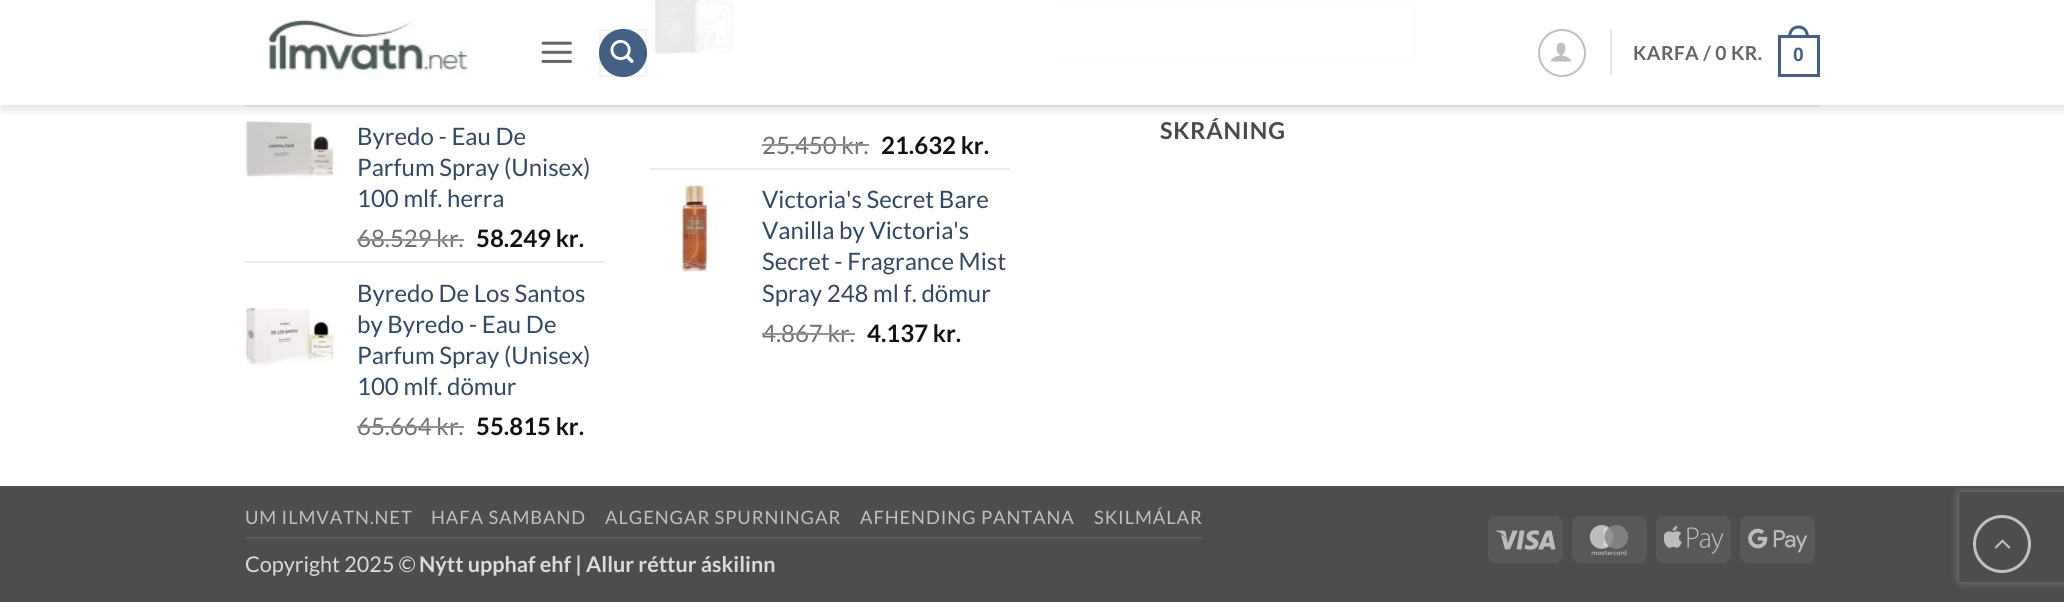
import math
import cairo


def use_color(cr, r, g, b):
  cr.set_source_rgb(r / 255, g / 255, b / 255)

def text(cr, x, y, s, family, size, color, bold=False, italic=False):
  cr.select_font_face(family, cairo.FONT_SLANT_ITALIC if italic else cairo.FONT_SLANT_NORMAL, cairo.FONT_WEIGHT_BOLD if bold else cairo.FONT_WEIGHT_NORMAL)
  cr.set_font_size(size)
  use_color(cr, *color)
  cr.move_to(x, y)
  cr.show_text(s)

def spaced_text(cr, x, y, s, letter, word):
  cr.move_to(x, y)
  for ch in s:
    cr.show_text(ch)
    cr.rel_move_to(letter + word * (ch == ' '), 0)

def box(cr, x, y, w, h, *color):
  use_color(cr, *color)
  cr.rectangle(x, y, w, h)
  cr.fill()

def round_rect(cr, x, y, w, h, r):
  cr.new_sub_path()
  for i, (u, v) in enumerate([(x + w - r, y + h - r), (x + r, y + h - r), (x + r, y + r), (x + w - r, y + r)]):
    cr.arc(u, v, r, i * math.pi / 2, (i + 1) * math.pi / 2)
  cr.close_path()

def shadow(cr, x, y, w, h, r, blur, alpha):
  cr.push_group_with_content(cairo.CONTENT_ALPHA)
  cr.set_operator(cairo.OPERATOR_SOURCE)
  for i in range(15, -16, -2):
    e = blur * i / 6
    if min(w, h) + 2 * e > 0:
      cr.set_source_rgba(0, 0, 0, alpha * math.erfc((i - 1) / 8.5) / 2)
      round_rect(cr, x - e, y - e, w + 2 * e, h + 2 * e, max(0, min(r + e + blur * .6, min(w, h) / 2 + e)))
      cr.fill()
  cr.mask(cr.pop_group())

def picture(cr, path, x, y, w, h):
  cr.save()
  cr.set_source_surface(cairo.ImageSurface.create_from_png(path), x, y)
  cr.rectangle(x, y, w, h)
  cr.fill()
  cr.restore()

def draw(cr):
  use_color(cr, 255, 255, 255)
  cr.paint()
  box(cr, 245, 74, 360, 2, 236, 236, 236)
  picture(cr, "img_05.png", 245, 119, 90, 58)
  picture(cr, "img_07.png", 654, 0, 82, 54)
  cr.rectangle(1056, 6, 358, 56)
  use_color(cr, 221, 221, 221)
  cr.stroke()
  cr.save()
  cr.rectangle(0, 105, 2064, 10)
  cr.clip()
  use_color(cr, 0, 0, 0)
  shadow(cr, 2, 2, 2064, 105, 0, 7.5, 0.15)
  cr.restore()
  cr.set_source_rgba(1, 1, 1, 0.9)
  cr.rectangle(245, 0, 1170, 76)
  cr.fill()
  picture(cr, "img_01.png", 265, 1, 224, 104)
  picture(cr, "img_02.png", 541, 41, 31, 22)
  use_color(cr, 68, 96, 132)
  cr.arc(623, 53, 24, 0, 2 * math.pi)
  cr.fill()
  cr.rectangle(600, 30, 46, 46)
  cr.set_source_rgba(0, 0, 0, 0.05)
  cr.stroke()
  picture(cr, "img_03.png", 610, 39, 24, 24)
  cr.arc(1562, 53, 23, 0, 2 * math.pi)
  use_color(cr, 192, 192, 192)
  cr.stroke()
  picture(cr, "img_04.png", 1551, 42, 20, 20)
  box(cr, 1610, 30, 2, 45, 230, 230, 230)
  cr.rectangle(1779.5, 36.5, 39, 39)
  use_color(cr, 68, 96, 132)
  cr.set_line_width(3)
  cr.stroke()
  cr.set_fill_rule(cairo.FILL_RULE_EVEN_ODD)
  cr.new_path()
  cr.move_to(1798.5, 25.5)
  cr.curve_to(1805.5, 25.5, 1809, 31, 1809, 37.5)
  cr.line_to(1788, 37.5)
  cr.curve_to(1788, 31, 1791.5, 25.5, 1798.5, 25.5)
  cr.close_path()
  cr.move_to(1798.5, 28.5)
  cr.curve_to(1804, 28.5, 1806, 33, 1806, 37.5)
  cr.line_to(1791, 37.5)
  cr.curve_to(1791, 33, 1793, 28.5, 1798.5, 28.5)
  cr.close_path()
  cr.fill()
  cr.set_source_rgba(0.29, 0.29, 0.29, 0.1)
  cr.rectangle(245, 105, 1575, 2)
  cr.fill()
  box(cr, 245, 261, 360, 2, 236, 236, 236)
  picture(cr, "img_06.png", 245, 306, 90, 61)
  box(cr, 650, 168, 360, 2, 236, 236, 236)
  picture(cr, "img_08.png", 677, 184, 31, 90)
  box(cr, 0, 486, 2064, 116, 77, 77, 77)
  box(cr, 245, 537, 958, 2, 88, 88, 88)
  round_rect(cr, 1488, 516, 75, 47, 8)
  cr.fill()
  picture(cr, "img_09.png", 1496, 530, 60, 20)
  round_rect(cr, 1572, 516, 75, 47, 8)
  cr.fill()
  picture(cr, "img_10.png", 1589, 525, 40, 30)
  round_rect(cr, 1656, 516, 75, 47, 8)
  cr.fill()
  picture(cr, "img_11.png", 1664, 526, 60, 28)
  round_rect(cr, 1740, 516, 75, 47, 8)
  cr.fill()
  picture(cr, "img_12.png", 1748, 528, 60, 25)
  cr.save()
  cr.new_path()
  cr.move_to(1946, 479)
  cr.line_to(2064, 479)
  cr.line_to(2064, 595)
  cr.line_to(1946, 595)
  cr.close_path()
  cr.move_to(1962, 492)
  cr.line_to(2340, 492)
  cr.curve_to(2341.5, 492, 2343, 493.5, 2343, 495)
  cr.line_to(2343, 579)
  cr.curve_to(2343, 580.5, 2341.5, 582, 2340, 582)
  cr.line_to(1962, 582)
  cr.curve_to(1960.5, 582, 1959, 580.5, 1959, 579)
  cr.line_to(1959, 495)
  cr.curve_to(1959, 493.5, 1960.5, 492, 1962, 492)
  cr.close_path()
  cr.clip()
  use_color(cr, 128, 128, 128)
  shadow(cr, 1959, 492, 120, 90, 3, 4, 1)
  cr.restore()
  cr.arc(2002, 544, 27.5, 0, 2 * math.pi)
  use_color(cr, 192, 192, 192)
  cr.stroke()
  picture(cr, "img_13.png", 1994, 539, 17, 10)
  cr.select_font_face("Lato", cairo.FONT_SLANT_NORMAL, cairo.FONT_WEIGHT_BOLD)
  cr.set_font_size(19.25)
  use_color(cr, 101, 101, 101)
  spaced_text(cr, 1633, 60, "KARFA / 0 KR.", 0.4, 0)
  cr.select_font_face("Liberation Sans", cairo.FONT_SLANT_NORMAL, cairo.FONT_WEIGHT_BOLD)
  use_color(cr, 68, 96, 132)
  spaced_text(cr, 1793, 61, "0", 0.4, 0)
  text(cr, 357, 145, "Byredo - Eau De", "Lato", 24, (51, 72, 98))
  text(cr, 357, 176, "Parfum Spray (Unisex)", "Lato", 24, (51, 72, 98))
  text(cr, 357, 207, "100 mlf. herra", "Lato", 24, (51, 72, 98))
  text(cr, 357, 247, "68.529 kr.", "Lato", 24, (112, 112, 112))
  box(cr, 357, 239, 107, 2, 146, 146, 146)
  text(cr, 476, 247, "58.249 kr.", "Lato", 24, (17, 17, 17), bold=True)
  text(cr, 357, 302, "Byredo De Los Santos", "Lato", 24, (51, 72, 98))
  text(cr, 357, 333, "by Byredo - Eau De", "Lato", 24, (51, 72, 98))
  text(cr, 357, 364, "Parfum Spray (Unisex)", "Lato", 24, (51, 72, 98))
  text(cr, 357, 395, "100 mlf. dömur", "Lato", 24, (51, 72, 98))
  text(cr, 357, 435, "65.664 kr.", "Lato", 24, (112, 112, 112))
  box(cr, 357, 426, 107, 2, 146, 146, 146)
  text(cr, 476, 435, "55.815 kr.", "Lato", 24, (17, 17, 17), bold=True)
  text(cr, 762, 154, "25.450 kr.", "Lato", 24, (112, 112, 112))
  box(cr, 762, 144, 107, 2, 146, 146, 146)
  text(cr, 881, 154, "21.632 kr.", "Lato", 24, (17, 17, 17), bold=True)
  text(cr, 762, 208, "Victoria's Secret Bare", "Lato", 24, (51, 72, 98))
  text(cr, 762, 239, "Vanilla by Victoria's", "Lato", 24, (51, 72, 98))
  text(cr, 762, 270, "Secret - Fragrance Mist", "Lato", 24, (51, 72, 98))
  text(cr, 762, 302, "Spray 248 ml f. dömur", "Lato", 24, (51, 72, 98))
  text(cr, 762, 342, "4.867 kr.", "Lato", 24, (112, 112, 112))
  box(cr, 762, 333, 93, 2, 146, 146, 146)
  text(cr, 867, 342, "4.137 kr.", "Lato", 24, (17, 17, 17), bold=True)
  cr.set_font_size(23.25)
  use_color(cr, 74, 74, 74)
  spaced_text(cr, 1160, 139, "SKRÁNING", 0.75, 0)
  cr.select_font_face("Lato")
  cr.set_font_size(18.4)
  use_color(cr, 191, 191, 191)
  spaced_text(cr, 245, 524, "UM ILMVATN.NET", 0.9, 0)
  spaced_text(cr, 431, 524, "HAFA SAMBAND", 0.9, 0)
  spaced_text(cr, 605, 524, "ALGENGAR SPURNINGAR", 0.9, 0)
  spaced_text(cr, 860, 524, "AFHENDING PANTANA", 0.9, 0)
  spaced_text(cr, 1094, 524, "SKILMÁLAR", 0.9, 0)
  text(cr, 245, 572, "Copyright 2025 ©", "Lato", 21.6, (219, 219, 219))
  text(cr, 419, 572, "Nýtt upphaf ehf | Allur réttur áskilinn", "Lato", 21.6, (219, 219, 219), bold=True)


surface = cairo.ImageSurface(cairo.FORMAT_RGB24, 2064, 602)
cr = cairo.Context(surface)
options = cairo.FontOptions()
options.set_hint_metrics(cairo.HINT_METRICS_OFF)
options.set_hint_style(cairo.HINT_STYLE_NONE)
cr.set_font_options(options)
cr.set_miter_limit(4)
draw(cr)
surface.write_to_png("out.png")
